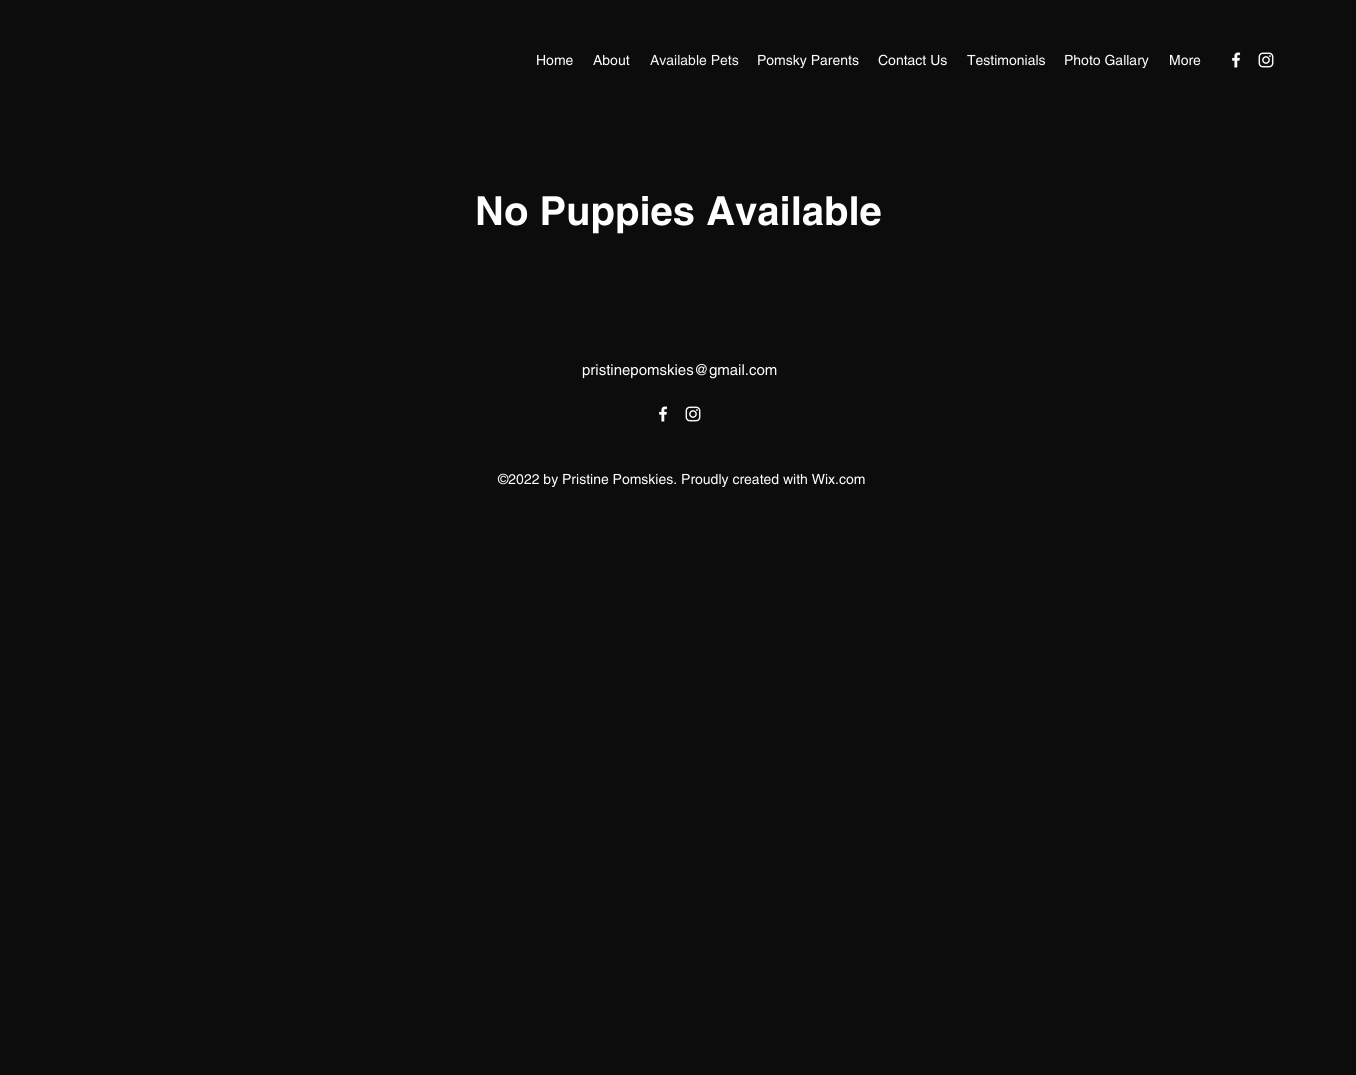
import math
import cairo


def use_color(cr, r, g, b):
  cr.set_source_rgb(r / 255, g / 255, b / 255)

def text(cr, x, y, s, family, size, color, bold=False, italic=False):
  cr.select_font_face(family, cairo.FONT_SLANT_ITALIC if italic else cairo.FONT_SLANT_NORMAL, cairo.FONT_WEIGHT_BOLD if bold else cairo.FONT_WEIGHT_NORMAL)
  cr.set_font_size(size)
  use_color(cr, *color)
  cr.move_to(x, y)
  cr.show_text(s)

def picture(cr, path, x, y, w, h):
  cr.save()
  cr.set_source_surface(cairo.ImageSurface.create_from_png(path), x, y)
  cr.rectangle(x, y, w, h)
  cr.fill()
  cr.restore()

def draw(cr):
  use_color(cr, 12, 12, 13)
  cr.paint()
  picture(cr, "img_01.png", 1232, 52, 9, 16)
  picture(cr, "img_02.png", 1258, 52, 16, 16)
  picture(cr, "img_01.png", 659, 406, 9, 16)
  picture(cr, "img_02.png", 685, 406, 16, 16)
  text(cr, 536, 65, "Home", "helvetica", 14, (255, 255, 255))
  text(cr, 593, 65, "About", "helvetica", 14, (255, 255, 255))
  text(cr, 650, 65, "Available Pets", "helvetica", 14, (247, 247, 247))
  text(cr, 757, 65, "Pomsky Parents", "helvetica", 14, (255, 255, 255))
  text(cr, 878, 65, "Contact Us", "helvetica", 14, (255, 255, 255))
  text(cr, 967, 65, "Testimonials", "helvetica", 14, (255, 255, 255))
  text(cr, 1064, 65, "Photo Gallary", "helvetica", 14, (255, 255, 255))
  text(cr, 1169, 65, "More", "helvetica", 14, (255, 255, 255))
  text(cr, 475, 225, "No Puppies Available", "helvetica", 40, (255, 255, 255), bold=True)
  text(cr, 582, 375, "pristinepomskies@gmail.com", "helvetica", 15, (255, 255, 255))
  text(cr, 498, 484, "©2022 by Pristine Pomskies. Proudly created with Wix.com", "helvetica", 14, (255, 255, 255))


surface = cairo.ImageSurface(cairo.FORMAT_RGB24, 1356, 1075)
cr = cairo.Context(surface)
options = cairo.FontOptions()
options.set_hint_metrics(cairo.HINT_METRICS_OFF)
options.set_hint_style(cairo.HINT_STYLE_NONE)
cr.set_font_options(options)
cr.set_miter_limit(4)
draw(cr)
surface.write_to_png("out.png")
